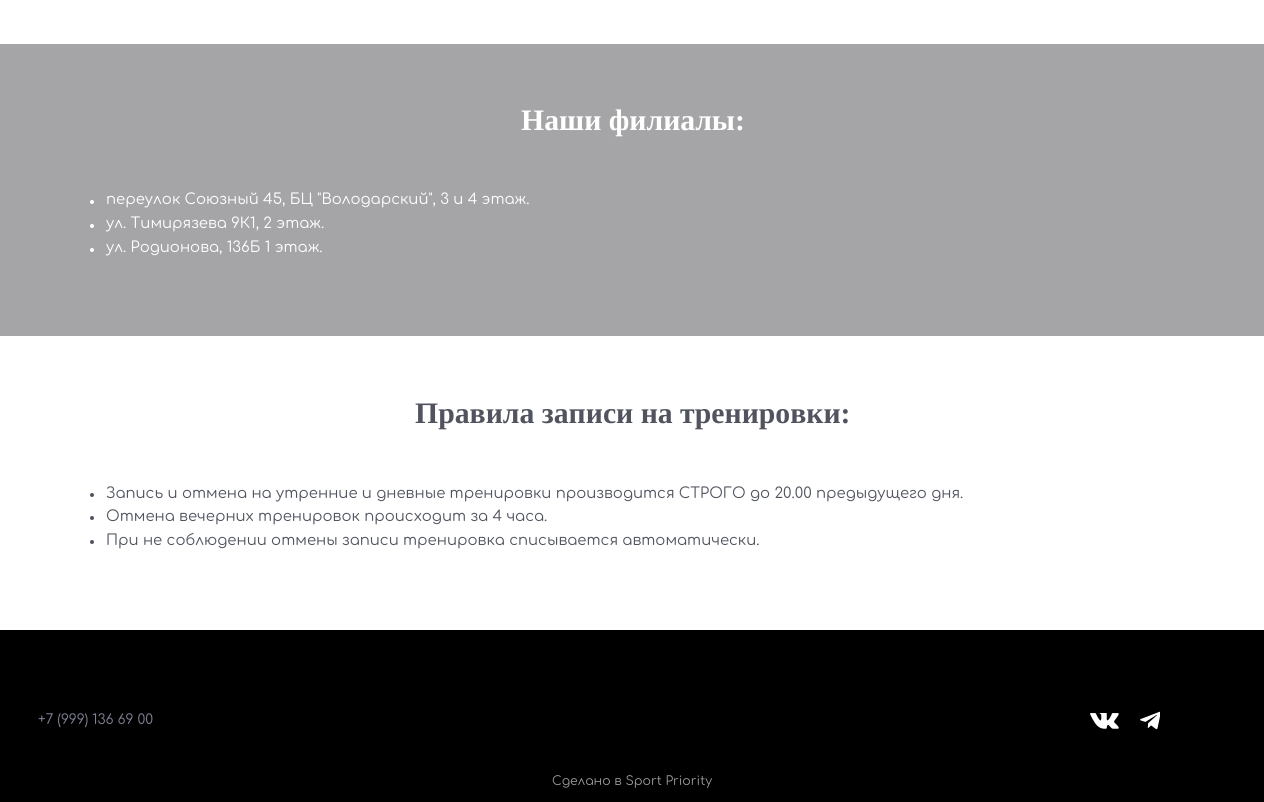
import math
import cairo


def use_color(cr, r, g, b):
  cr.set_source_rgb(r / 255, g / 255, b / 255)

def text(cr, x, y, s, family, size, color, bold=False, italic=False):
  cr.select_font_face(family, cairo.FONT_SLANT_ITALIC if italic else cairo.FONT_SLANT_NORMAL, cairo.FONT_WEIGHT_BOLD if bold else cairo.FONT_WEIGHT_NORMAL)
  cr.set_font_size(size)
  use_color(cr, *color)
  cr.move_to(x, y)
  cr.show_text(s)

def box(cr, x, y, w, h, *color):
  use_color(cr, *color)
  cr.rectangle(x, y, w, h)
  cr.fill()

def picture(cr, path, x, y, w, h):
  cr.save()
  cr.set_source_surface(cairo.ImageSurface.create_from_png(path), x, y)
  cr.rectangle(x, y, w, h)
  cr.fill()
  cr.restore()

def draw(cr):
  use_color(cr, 255, 255, 255)
  cr.paint()
  box(cr, 0, 44, 1264, 292, 165, 164, 166)
  use_color(cr, 255, 255, 255)
  cr.arc(92, 202, 2, 0, 2 * math.pi)
  cr.fill()
  cr.arc(92, 226, 2, 0, 2 * math.pi)
  cr.fill()
  cr.arc(92, 250, 2, 0, 2 * math.pi)
  cr.fill()
  use_color(cr, 81, 84, 95)
  cr.arc(92, 495, 2, 0, 2 * math.pi)
  cr.fill()
  cr.arc(92, 518, 2, 0, 2 * math.pi)
  cr.fill()
  cr.arc(92, 542, 2, 0, 2 * math.pi)
  cr.fill()
  box(cr, 0, 630, 1264, 172, 0, 0, 0)
  picture(cr, "img_01.png", 1090, 713, 29, 16)
  picture(cr, "img_02.png", 1140, 711, 20, 19)
  text(cr, 521, 130, "Наши филиалы:", "Liberation Serif", 29.75, (255, 255, 255), bold=True)
  text(cr, 106, 204, "переулок Союзный 45, БЦ \"Володарский\", 3 и 4 этаж.", "Comfortaa", 14.85, (255, 255, 255))
  text(cr, 106, 228, "ул. Тимирязева 9К1, 2 этаж.", "Comfortaa", 14.85, (255, 255, 255))
  text(cr, 106, 252, "ул. Родионова, 136Б 1 этаж.", "Comfortaa", 14.85, (255, 255, 255))
  text(cr, 415, 423, "Правила записи на тренировки:", "Liberation Serif", 29.75, (81, 84, 95), bold=True)
  text(cr, 106, 498, "Запись и отмена на утренние и дневные тренировки производится СТРОГО до 20.00 предыдущего дня.", "Comfortaa", 14.85, (81, 84, 95))
  text(cr, 106, 521, "Отмена вечерних тренировок происходит за 4 часа.", "Comfortaa", 14.85, (81, 84, 95))
  text(cr, 106, 545, "При не соблюдении отмены записи тренировка списываетcя автоматически.", "Comfortaa", 14.85, (81, 84, 95))
  text(cr, 38, 724, "+7 (999) 136 69 00", "Comfortaa", 13.75, (129, 130, 149))
  text(cr, 552, 785, "Сделано в Sport Priority", "Comfortaa", 12.5, (153, 153, 153))


surface = cairo.ImageSurface(cairo.FORMAT_RGB24, 1264, 802)
cr = cairo.Context(surface)
options = cairo.FontOptions()
options.set_hint_metrics(cairo.HINT_METRICS_OFF)
options.set_hint_style(cairo.HINT_STYLE_NONE)
cr.set_font_options(options)
cr.set_miter_limit(4)
draw(cr)
surface.write_to_png("out.png")
